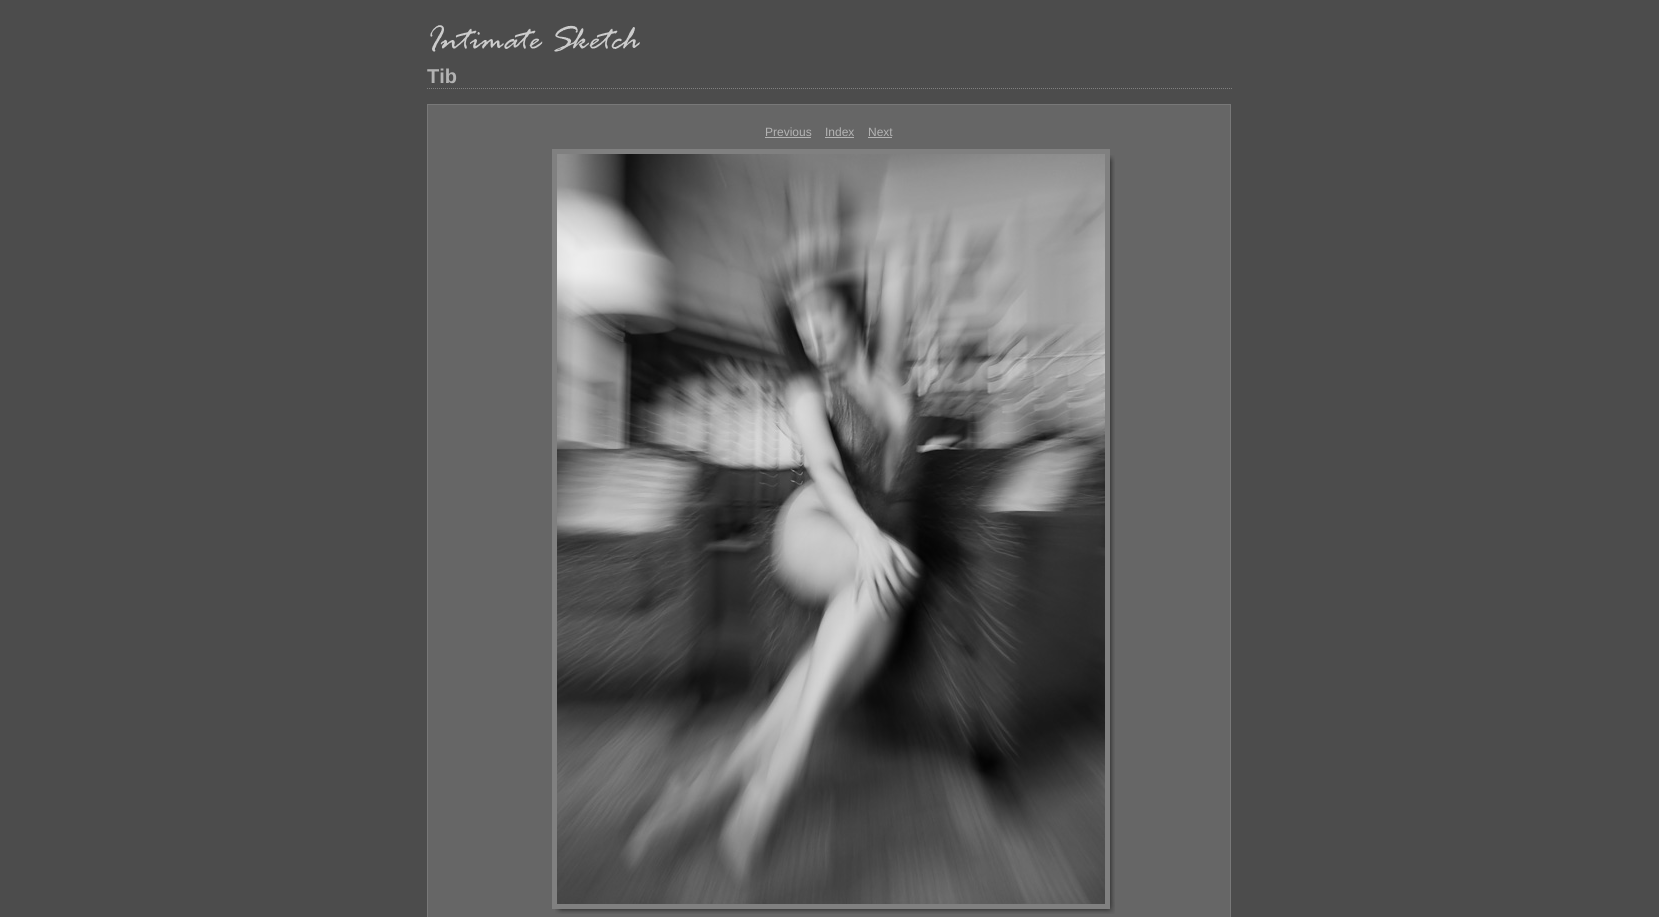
import math
import cairo


def use_color(cr, r, g, b):
  cr.set_source_rgb(r / 255, g / 255, b / 255)

def text(cr, x, y, s, family, size, color, bold=False, italic=False):
  cr.select_font_face(family, cairo.FONT_SLANT_ITALIC if italic else cairo.FONT_SLANT_NORMAL, cairo.FONT_WEIGHT_BOLD if bold else cairo.FONT_WEIGHT_NORMAL)
  cr.set_font_size(size)
  use_color(cr, *color)
  cr.move_to(x, y)
  cr.show_text(s)

def box(cr, x, y, w, h, *color):
  use_color(cr, *color)
  cr.rectangle(x, y, w, h)
  cr.fill()

def picture(cr, path, x, y, w, h):
  cr.save()
  cr.set_source_surface(cairo.ImageSurface.create_from_png(path), x, y)
  cr.rectangle(x, y, w, h)
  cr.fill()
  cr.restore()

def draw(cr):
  use_color(cr, 76, 76, 76)
  cr.paint()
  picture(cr, "img_01.png", 430, 25, 210, 27)
  cr.new_path()
  cr.move_to(427, 88.5)
  cr.line_to(1233, 88.5)
  use_color(cr, 127, 127, 127)
  cr.set_line_width(1)
  cr.set_dash([1, 1])
  cr.stroke()
  use_color(cr, 102, 102, 102)
  cr.rectangle(427.5, 104.5, 803, 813)
  cr.fill_preserve()
  use_color(cr, 120, 120, 120)
  cr.set_dash([])
  cr.stroke()
  box(cr, 765, 137, 46, 1, 179, 179, 179)
  box(cr, 825, 137, 29, 1, 179, 179, 179)
  box(cr, 868, 137, 24, 1, 179, 179, 179)
  picture(cr, "img_02.png", 562, 162, 553, 752)
  cr.rectangle(554.5, 151.5, 553, 755)
  use_color(cr, 128, 128, 128)
  cr.set_line_width(5)
  cr.stroke()
  picture(cr, "img_03.png", 557, 154, 548, 750)
  picture(cr, "img_04.png", 1110, 155, 5, 7)
  picture(cr, "img_05.png", 555, 909, 7, 5)
  text(cr, 427, 83, "Tib", "Liberation Sans", 20, (179, 179, 179), bold=True)
  text(cr, 765, 136, "Previous", "Liberation Sans", 12, (179, 179, 179))
  text(cr, 825, 136, "Index", "Liberation Sans", 12, (179, 179, 179))
  text(cr, 868, 136, "Next", "Liberation Sans", 12, (179, 179, 179))


surface = cairo.ImageSurface(cairo.FORMAT_RGB24, 1659, 917)
cr = cairo.Context(surface)
options = cairo.FontOptions()
options.set_hint_metrics(cairo.HINT_METRICS_OFF)
options.set_hint_style(cairo.HINT_STYLE_NONE)
cr.set_font_options(options)
cr.set_miter_limit(4)
draw(cr)
surface.write_to_png("out.png")
